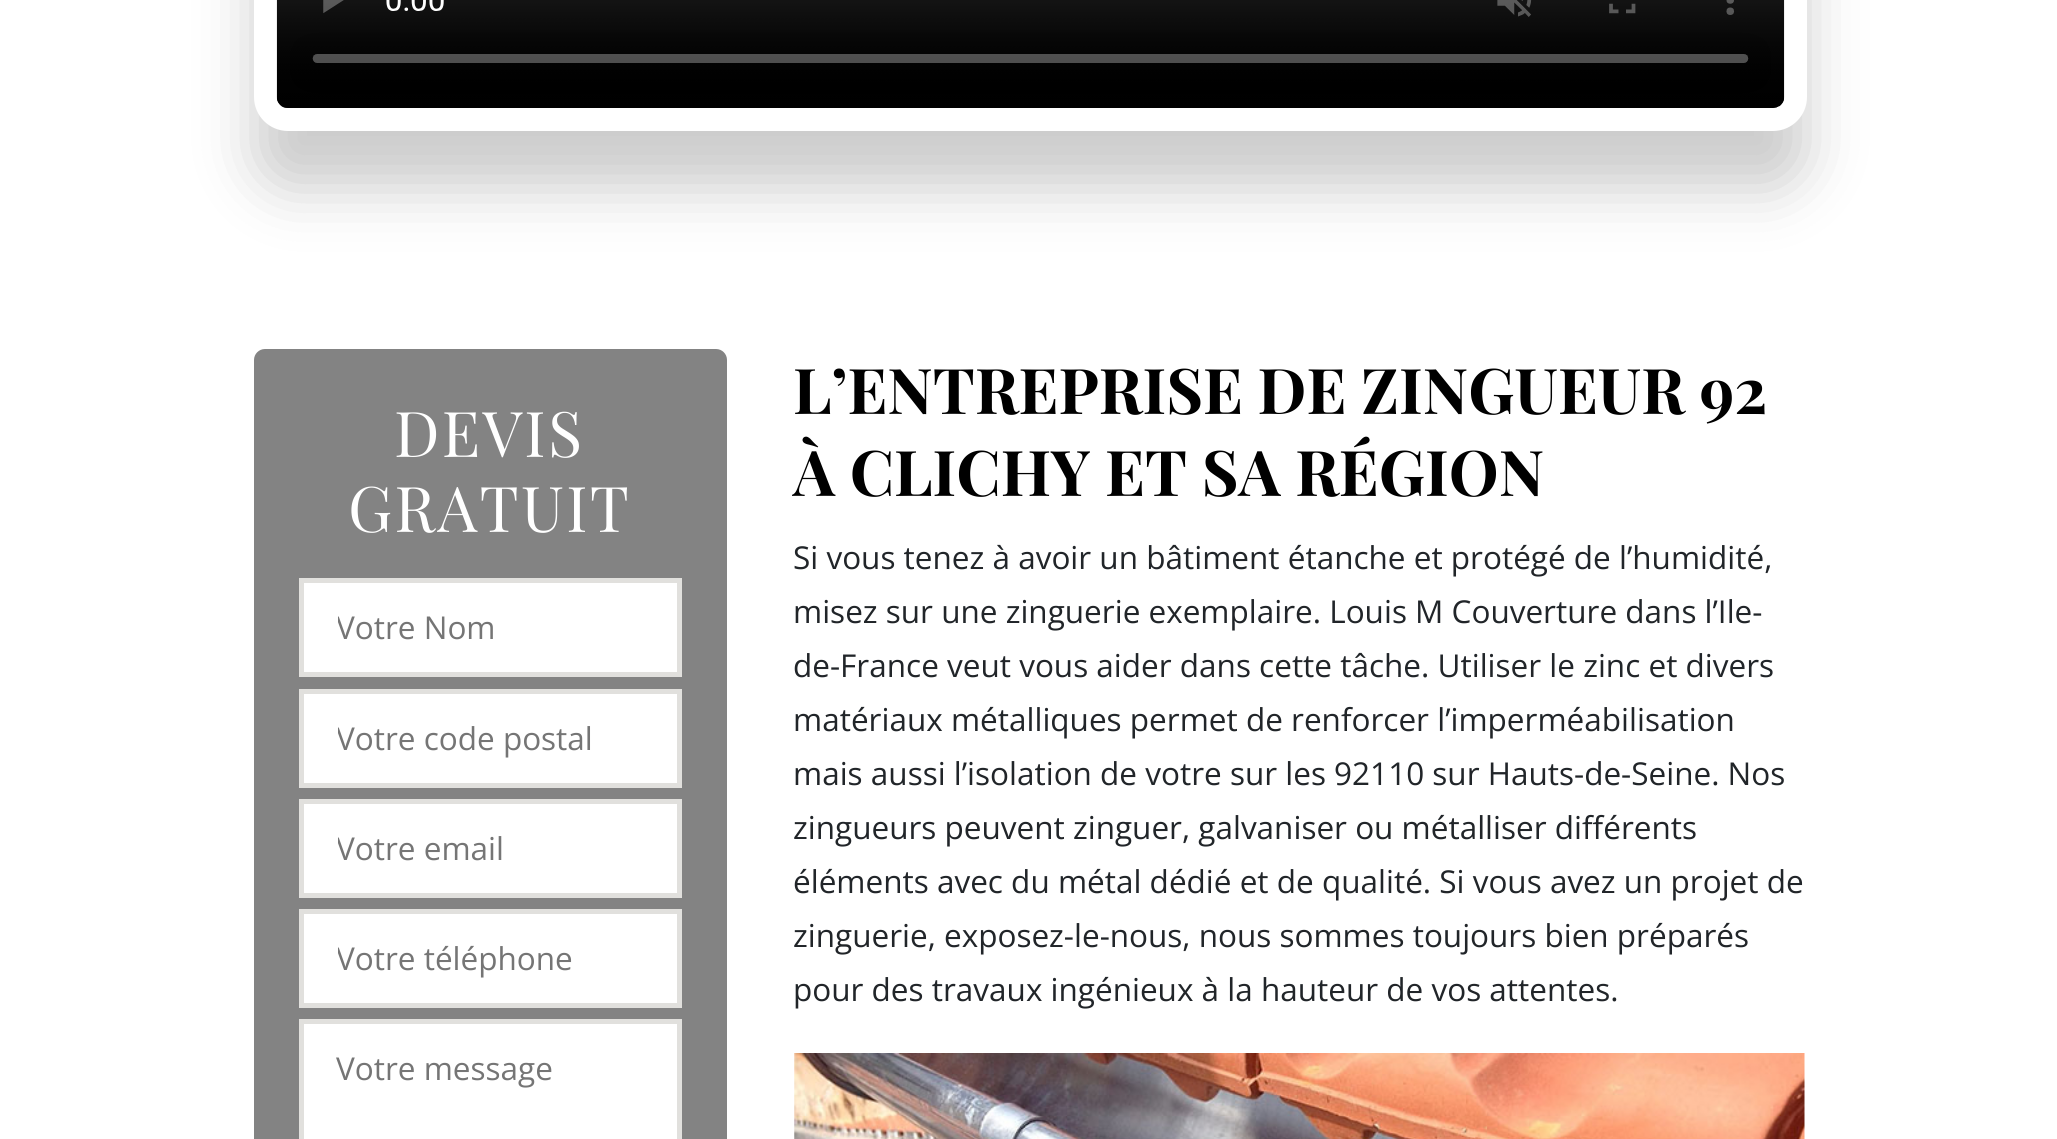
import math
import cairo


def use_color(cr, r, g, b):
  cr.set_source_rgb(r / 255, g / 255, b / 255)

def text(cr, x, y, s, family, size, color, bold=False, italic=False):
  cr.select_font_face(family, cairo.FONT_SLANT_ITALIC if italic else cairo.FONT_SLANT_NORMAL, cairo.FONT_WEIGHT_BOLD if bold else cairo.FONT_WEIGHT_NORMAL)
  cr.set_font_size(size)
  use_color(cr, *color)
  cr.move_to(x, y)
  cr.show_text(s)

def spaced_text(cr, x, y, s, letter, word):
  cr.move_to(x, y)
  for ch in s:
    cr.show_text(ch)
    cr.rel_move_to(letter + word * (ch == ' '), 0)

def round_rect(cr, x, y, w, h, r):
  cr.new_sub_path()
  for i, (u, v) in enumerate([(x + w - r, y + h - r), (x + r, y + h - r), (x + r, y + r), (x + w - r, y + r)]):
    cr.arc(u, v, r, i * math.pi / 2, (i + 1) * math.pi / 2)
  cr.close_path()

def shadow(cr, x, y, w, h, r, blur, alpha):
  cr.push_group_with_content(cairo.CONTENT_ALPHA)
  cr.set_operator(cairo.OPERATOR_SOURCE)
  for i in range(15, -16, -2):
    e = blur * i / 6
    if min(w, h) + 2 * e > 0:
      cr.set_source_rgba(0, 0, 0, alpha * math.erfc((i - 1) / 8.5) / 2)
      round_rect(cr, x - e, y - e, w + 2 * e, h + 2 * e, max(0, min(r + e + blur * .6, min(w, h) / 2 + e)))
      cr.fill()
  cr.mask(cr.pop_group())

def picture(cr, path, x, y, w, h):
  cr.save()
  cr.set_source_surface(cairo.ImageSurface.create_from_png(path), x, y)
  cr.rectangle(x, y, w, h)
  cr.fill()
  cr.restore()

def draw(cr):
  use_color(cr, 255, 255, 255)
  cr.paint()
  use_color(cr, 0, 0, 0)
  shadow(cr, 254, -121, 1553, 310, 34, 29, 0.2)
  round_rect(cr, 265.5, -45.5, 1530, 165, 22.5)
  use_color(cr, 255, 255, 255)
  cr.set_line_width(23)
  cr.stroke()
  picture(cr, "img_01.png", 276, 0, 1509, 108)
  use_color(cr, 131, 131, 131)
  round_rect(cr, 254, 349, 473, 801, 11)
  cr.fill()
  use_color(cr, 255, 255, 255)
  cr.rectangle(301.5, 580.5, 378, 94)
  cr.fill_preserve()
  use_color(cr, 225, 224, 221)
  cr.set_line_width(5)
  cr.stroke()
  use_color(cr, 255, 255, 255)
  cr.rectangle(301.5, 691.5, 378, 94)
  cr.fill_preserve()
  use_color(cr, 225, 224, 221)
  cr.stroke()
  use_color(cr, 255, 255, 255)
  cr.rectangle(301.5, 801.5, 378, 94)
  cr.fill_preserve()
  use_color(cr, 225, 224, 221)
  cr.stroke()
  use_color(cr, 255, 255, 255)
  cr.rectangle(301.5, 911.5, 378, 94)
  cr.fill_preserve()
  use_color(cr, 225, 224, 221)
  cr.stroke()
  use_color(cr, 255, 255, 255)
  cr.rectangle(301.5, 1021.5, 378, 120)
  cr.fill_preserve()
  use_color(cr, 225, 224, 221)
  cr.stroke()
  picture(cr, "img_02.png", 794, 1053, 1011, 86)
  cr.select_font_face("Playfair Display")
  cr.set_font_size(63)
  use_color(cr, 255, 255, 255)
  spaced_text(cr, 394, 457, "DEVIS", 2.25, 0)
  spaced_text(cr, 348, 532, "GRATUIT", 2.25, 0)
  cr.save()
  cr.rectangle(338, 605, 306, 43)
  cr.clip()
  text(cr, 336, 639, "Votre Nom", "Open Sans", 31.5, (117, 117, 117))
  cr.restore()
  cr.save()
  cr.rectangle(338, 716, 306, 42)
  cr.clip()
  text(cr, 336, 750, "Votre code postal", "Open Sans", 31.5, (117, 117, 117))
  cr.restore()
  cr.save()
  cr.rectangle(338, 826, 306, 43)
  cr.clip()
  text(cr, 336, 860, "Votre email", "Open Sans", 31.5, (117, 117, 117))
  cr.restore()
  cr.save()
  cr.rectangle(338, 936, 306, 43)
  cr.clip()
  text(cr, 336, 970, "Votre téléphone", "Open Sans", 31.5, (117, 117, 117))
  cr.restore()
  text(cr, 336, 1080, "Votre message", "Open Sans", 31.5, (117, 117, 117))
  text(cr, 793, 414, "L’ENTREPRISE DE ZINGUEUR 92", "Playfair Display", 63, (0, 0, 0), bold=True)
  text(cr, 793, 496, "À CLICHY ET SA RÉGION", "Playfair Display", 63, (0, 0, 0), bold=True)
  text(cr, 793, 569, "Si vous tenez à avoir un bâtiment étanche et protégé de l’humidité,", "Open Sans", 31.5, (33, 37, 41))
  text(cr, 793, 623, "misez sur une zinguerie exemplaire. Louis M Couverture dans l’Ile-", "Open Sans", 31.5, (33, 37, 41))
  text(cr, 793, 677, "de-France veut vous aider dans cette tâche. Utiliser le zinc et divers", "Open Sans", 31.5, (33, 37, 41))
  text(cr, 793, 731, "matériaux métalliques permet de renforcer l’imperméabilisation", "Open Sans", 31.5, (33, 37, 41))
  text(cr, 793, 785, "mais aussi l’isolation de votre sur les 92110 sur Hauts-de-Seine. Nos", "Open Sans", 31.5, (33, 37, 41))
  text(cr, 793, 839, "zingueurs peuvent zinguer, galvaniser ou métalliser différents", "Open Sans", 31.5, (33, 37, 41))
  text(cr, 793, 893, "éléments avec du métal dédié et de qualité. Si vous avez un projet de", "Open Sans", 31.5, (33, 37, 41))
  text(cr, 793, 947, "zinguerie, exposez-le-nous, nous sommes toujours bien préparés", "Open Sans", 31.5, (33, 37, 41))
  text(cr, 793, 1001, "pour des travaux ingénieux à la hauteur de vos attentes.", "Open Sans", 31.5, (33, 37, 41))


surface = cairo.ImageSurface(cairo.FORMAT_RGB24, 2057, 1139)
cr = cairo.Context(surface)
options = cairo.FontOptions()
options.set_hint_metrics(cairo.HINT_METRICS_OFF)
options.set_hint_style(cairo.HINT_STYLE_NONE)
cr.set_font_options(options)
cr.set_miter_limit(4)
draw(cr)
surface.write_to_png("out.png")
